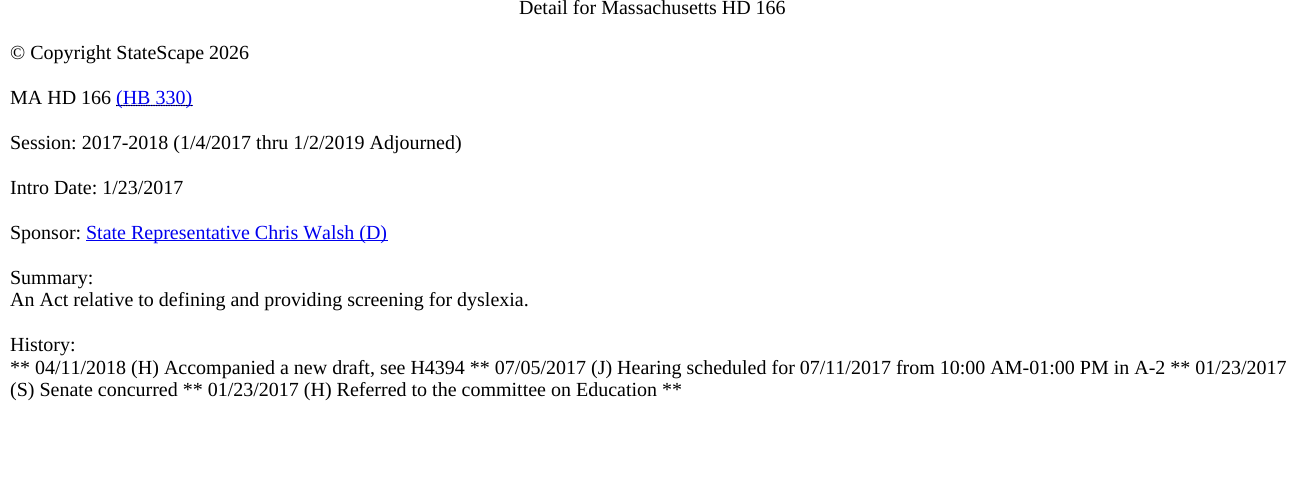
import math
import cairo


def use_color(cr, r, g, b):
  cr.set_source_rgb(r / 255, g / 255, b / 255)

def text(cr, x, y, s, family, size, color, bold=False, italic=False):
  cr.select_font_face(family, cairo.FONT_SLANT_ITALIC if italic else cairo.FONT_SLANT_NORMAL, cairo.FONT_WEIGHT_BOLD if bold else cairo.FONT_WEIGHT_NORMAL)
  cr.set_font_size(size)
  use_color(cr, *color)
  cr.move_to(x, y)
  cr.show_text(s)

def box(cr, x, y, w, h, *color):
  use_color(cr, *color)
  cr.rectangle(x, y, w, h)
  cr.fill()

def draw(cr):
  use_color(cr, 255, 255, 255)
  cr.paint()
  box(cr, 116, 105, 77, 1, 0, 0, 238)
  cr.new_path()
  cr.move_to(116, 105.5)
  cr.line_to(192, 105.5)
  use_color(cr, 0, 0, 0)
  cr.set_line_width(1.2)
  cr.set_dash([1.25, 1.25])
  cr.stroke()
  box(cr, 86, 240, 302, 1, 0, 0, 238)
  text(cr, 519, 14, "Detail for Massachusetts HD 166", "Liberation Serif", 20, (0, 0, 0))
  text(cr, 10, 59, "© Copyright StateScape 2026", "Liberation Serif", 20, (0, 0, 0))
  text(cr, 10, 104, "MA HD 166", "Liberation Serif", 20, (0, 0, 0))
  text(cr, 116, 104, "(HB 330)", "Liberation Serif", 20, (0, 0, 238))
  text(cr, 10, 149, "Session: 2017-2018 (1/4/2017 thru 1/2/2019 Adjourned)", "Liberation Serif", 20, (0, 0, 0))
  text(cr, 10, 194, "Intro Date: 1/23/2017", "Liberation Serif", 20, (0, 0, 0))
  text(cr, 10, 239, "Sponsor:", "Liberation Serif", 20, (0, 0, 0))
  text(cr, 86, 239, "State Representative Chris Walsh (D)", "Liberation Serif", 20, (0, 0, 238))
  text(cr, 10, 284, "Summary:", "Liberation Serif", 20, (0, 0, 0))
  text(cr, 10, 306, "An Act relative to defining and providing screening for dyslexia.", "Liberation Serif", 20, (0, 0, 0))
  text(cr, 10, 351, "History:", "Liberation Serif", 20, (0, 0, 0))
  text(cr, 10, 374, "** 04/11/2018 (H) Accompanied a new draft, see H4394 ** 07/05/2017 (J) Hearing scheduled for 07/11/2017 from 10:00 AM-01:00 PM in A-2 ** 01/23/2017", "Liberation Serif", 20, (0, 0, 0))
  text(cr, 10, 396, "(S) Senate concurred ** 01/23/2017 (H) Referred to the committee on Education **", "Liberation Serif", 20, (0, 0, 0))


surface = cairo.ImageSurface(cairo.FORMAT_RGB24, 1303, 482)
cr = cairo.Context(surface)
options = cairo.FontOptions()
options.set_hint_metrics(cairo.HINT_METRICS_OFF)
options.set_hint_style(cairo.HINT_STYLE_NONE)
cr.set_font_options(options)
cr.set_miter_limit(4)
draw(cr)
surface.write_to_png("out.png")
